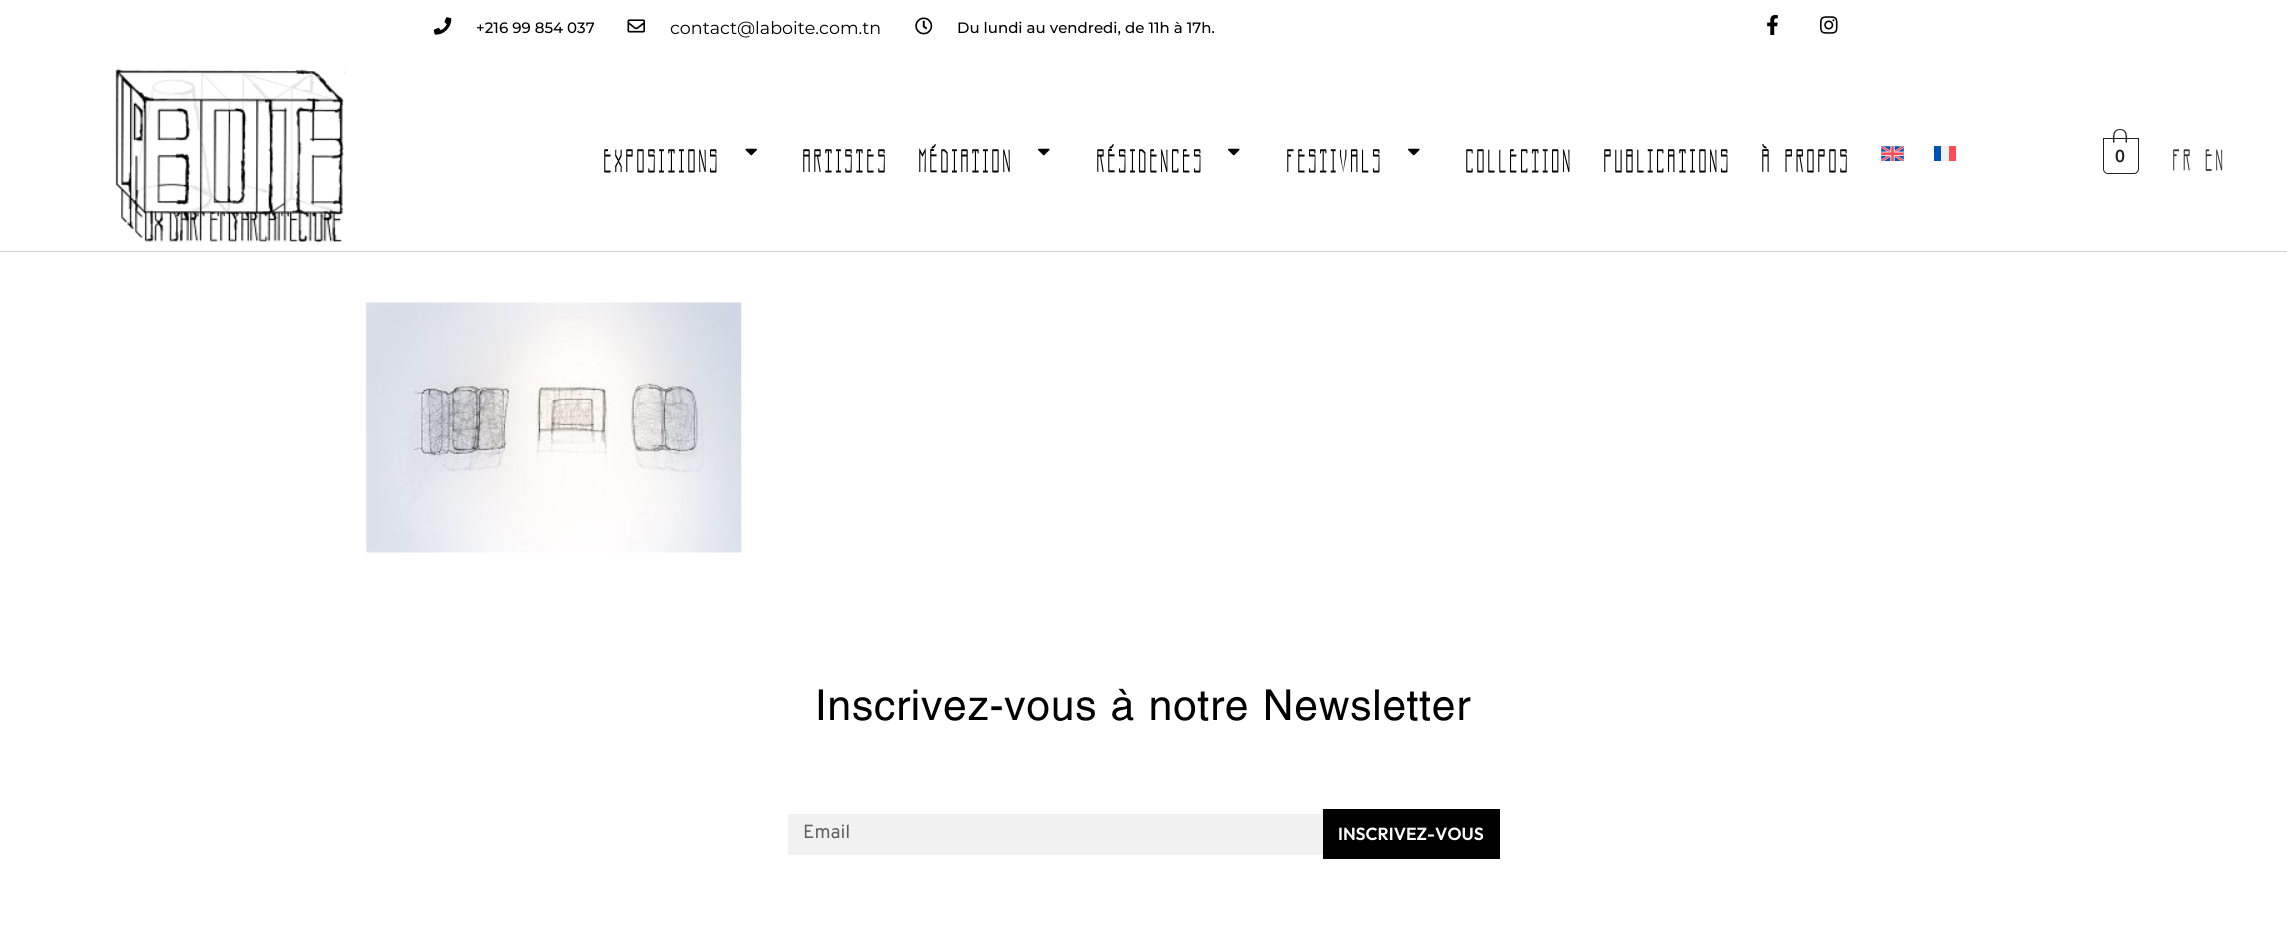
import math
import cairo


def use_color(cr, r, g, b):
  cr.set_source_rgb(r / 255, g / 255, b / 255)

def text(cr, x, y, s, family, size, color, bold=False, italic=False):
  cr.select_font_face(family, cairo.FONT_SLANT_ITALIC if italic else cairo.FONT_SLANT_NORMAL, cairo.FONT_WEIGHT_BOLD if bold else cairo.FONT_WEIGHT_NORMAL)
  cr.set_font_size(size)
  use_color(cr, *color)
  cr.move_to(x, y)
  cr.show_text(s)

def spaced_text(cr, x, y, s, letter, word):
  cr.move_to(x, y)
  for ch in s:
    cr.show_text(ch)
    cr.rel_move_to(letter + word * (ch == ' '), 0)

def box(cr, x, y, w, h, *color):
  use_color(cr, *color)
  cr.rectangle(x, y, w, h)
  cr.fill()

def picture(cr, path, x, y, w, h):
  cr.save()
  cr.set_source_surface(cairo.ImageSurface.create_from_png(path), x, y)
  cr.rectangle(x, y, w, h)
  cr.fill()
  cr.restore()

def draw(cr):
  use_color(cr, 255, 255, 255)
  cr.paint()
  picture(cr, "img_01.png", 433, 17, 19, 18)
  picture(cr, "img_02.png", 627, 19, 18, 14)
  picture(cr, "img_03.png", 915, 17, 18, 18)
  picture(cr, "img_04.png", 1767, 15, 11, 20)
  picture(cr, "img_05.png", 1820, 16, 18, 18)
  box(cr, 0, 251, 2287, 1, 211, 211, 211)
  picture(cr, "img_06.png", 115, 68, 231, 175)
  picture(cr, "img_07.png", 745, 148, 12, 8)
  picture(cr, "img_08.png", 1038, 148, 12, 8)
  picture(cr, "img_08.png", 1228, 148, 12, 8)
  picture(cr, "img_08.png", 1408, 148, 12, 8)
  picture(cr, "img_09.png", 1881, 146, 23, 15)
  box(cr, 1941, 146, 8, 15, 240, 240, 240)
  box(cr, 1949, 146, 7, 15, 255, 75, 85)
  box(cr, 1934, 146, 7, 15, 0, 82, 180)
  cr.new_path()
  cr.move_to(2103.5, 138.5)
  cr.line_to(2138.5, 138.5)
  cr.line_to(2138.5, 169)
  cr.curve_to(2138.5, 171.5, 2136.5, 173.5, 2134, 173.5)
  cr.line_to(2108, 173.5)
  cr.curve_to(2105.5, 173.5, 2103.5, 171.5, 2103.5, 169)
  cr.close_path()
  use_color(cr, 33, 33, 33)
  cr.set_line_width(1)
  cr.stroke()
  cr.set_fill_rule(cairo.FILL_RULE_EVEN_ODD)
  cr.new_path()
  cr.move_to(2120, 129)
  cr.curve_to(2128, 129, 2127, 137, 2127, 142.5)
  cr.line_to(2113, 142.5)
  cr.curve_to(2113, 137, 2112, 129, 2120, 129)
  cr.close_path()
  cr.move_to(2120, 130)
  cr.curve_to(2127, 130, 2125.5, 138, 2125.5, 142.5)
  cr.line_to(2114.5, 142.5)
  cr.curve_to(2114.5, 138, 2113, 130, 2120, 130)
  cr.close_path()
  cr.fill()
  picture(cr, "img_10.png", 366, 302, 376, 251)
  box(cr, 788, 814, 535, 41, 241, 241, 241)
  box(cr, 1323, 809, 177, 50, 0, 0, 0)
  text(cr, 476, 33, "+216 99 854 037", "Montserrat Medium", 15, (0, 0, 0))
  text(cr, 670, 34, "contact@laboite.com.tn", "Montserrat", 17.5, (0, 0, 0))
  text(cr, 957, 33, "Du lundi au vendredi, de 11h à 17h.", "Montserrat Medium", 15, (0, 0, 0))
  cr.select_font_face("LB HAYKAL", cairo.FONT_SLANT_NORMAL, cairo.FONT_WEIGHT_BOLD)
  cr.set_font_size(32.5)
  spaced_text(cr, 604, 164, "EXPOSITIONS", 5, 0)
  spaced_text(cr, 803, 164, "ARTISTES", 5, 0)
  spaced_text(cr, 919, 164, "MÉDIATION", 5, 0)
  spaced_text(cr, 1097, 164, "RÉSIDENCES", 5, 0)
  spaced_text(cr, 1287, 164, "FESTIVALS", 5, 0)
  spaced_text(cr, 1466, 164, "COLLECTION", 5, 0)
  spaced_text(cr, 1604, 164, "PUBLICATIONS", 5, 0)
  spaced_text(cr, 1762, 164, "À PROPOS", 5, 0)
  text(cr, 2115, 162, "0", "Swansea", 17, (33, 33, 33), bold=True)
  cr.select_font_face("LB HAYKAL", cairo.FONT_SLANT_NORMAL, cairo.FONT_WEIGHT_BOLD)
  cr.set_font_size(30)
  use_color(cr, 51, 51, 51)
  spaced_text(cr, 2173, 163, "FR EN", 5, 0)
  cr.select_font_face("Swansea")
  cr.set_font_size(42.5)
  use_color(cr, 0, 0, 0)
  spaced_text(cr, 815, 720, "Inscrivez-vous à notre Newsletter", 0.75, 1)
  text(cr, 803, 838, "Email", "Overpass", 19, (96, 96, 96))
  text(cr, 1338, 840, "INSCRIVEZ-VOUS", "Outfit SemiBold", 17.5, (255, 255, 255))


surface = cairo.ImageSurface(cairo.FORMAT_RGB24, 2287, 946)
cr = cairo.Context(surface)
options = cairo.FontOptions()
options.set_hint_metrics(cairo.HINT_METRICS_OFF)
options.set_hint_style(cairo.HINT_STYLE_NONE)
cr.set_font_options(options)
cr.set_miter_limit(4)
draw(cr)
surface.write_to_png("out.png")
